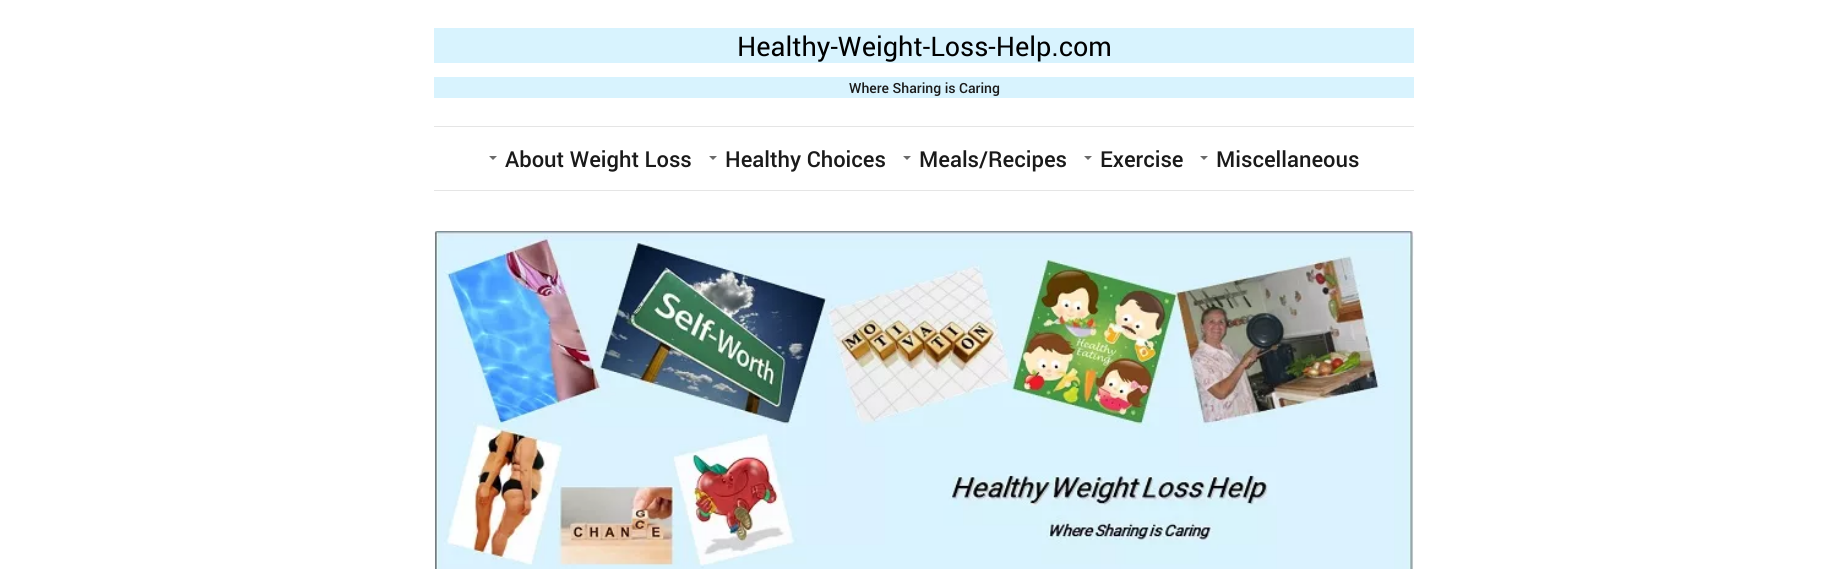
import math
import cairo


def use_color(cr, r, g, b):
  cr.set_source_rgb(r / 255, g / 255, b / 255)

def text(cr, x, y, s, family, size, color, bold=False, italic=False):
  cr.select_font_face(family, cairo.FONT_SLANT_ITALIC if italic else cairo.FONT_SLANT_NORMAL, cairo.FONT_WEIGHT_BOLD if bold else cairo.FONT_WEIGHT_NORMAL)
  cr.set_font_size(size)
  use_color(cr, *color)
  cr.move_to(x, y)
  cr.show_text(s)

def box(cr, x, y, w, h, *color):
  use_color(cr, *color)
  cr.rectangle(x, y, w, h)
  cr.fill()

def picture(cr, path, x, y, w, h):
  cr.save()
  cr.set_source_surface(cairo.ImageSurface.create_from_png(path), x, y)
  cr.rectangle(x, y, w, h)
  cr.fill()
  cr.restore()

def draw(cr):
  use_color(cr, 255, 255, 255)
  cr.paint()
  picture(cr, "img_01.png", 434, 231, 980, 338)
  box(cr, 434, 28, 980, 35, 216, 243, 254)
  box(cr, 434, 77, 980, 21, 216, 243, 254)
  box(cr, 434, 126, 980, 1, 229, 229, 229)
  box(cr, 434, 190, 980, 1, 229, 229, 229)
  use_color(cr, 106, 106, 106)
  cr.new_path()
  cr.move_to(489, 156)
  cr.line_to(497, 156)
  cr.line_to(493, 160)
  cr.close_path()
  cr.fill()
  cr.new_path()
  cr.move_to(709, 156)
  cr.line_to(717, 156)
  cr.line_to(713, 160)
  cr.close_path()
  cr.fill()
  cr.new_path()
  cr.move_to(903, 156)
  cr.line_to(911, 156)
  cr.line_to(907, 160)
  cr.close_path()
  cr.fill()
  cr.new_path()
  cr.move_to(1084, 156)
  cr.line_to(1092, 156)
  cr.line_to(1088, 160)
  cr.close_path()
  cr.fill()
  cr.new_path()
  cr.move_to(1200, 156)
  cr.line_to(1208, 156)
  cr.line_to(1204, 160)
  cr.close_path()
  cr.fill()
  text(cr, 737, 56, "Healthy-Weight-Loss-Help.com", "Roboto", 27, (0, 0, 0))
  text(cr, 849, 93, "Where Sharing is Caring", "Roboto Medium", 14, (26, 26, 26))
  text(cr, 505, 167, "About Weight Loss", "Roboto Medium", 22, (26, 26, 26))
  text(cr, 725, 167, "Healthy Choices", "Roboto Medium", 22, (26, 26, 26))
  text(cr, 919, 167, "Meals/Recipes", "Roboto Medium", 22, (26, 26, 26))
  text(cr, 1100, 167, "Exercise", "Roboto Medium", 22, (26, 26, 26))
  text(cr, 1216, 167, "Miscellaneous", "Roboto Medium", 22, (26, 26, 26))


surface = cairo.ImageSurface(cairo.FORMAT_RGB24, 1848, 569)
cr = cairo.Context(surface)
options = cairo.FontOptions()
options.set_hint_metrics(cairo.HINT_METRICS_OFF)
options.set_hint_style(cairo.HINT_STYLE_NONE)
cr.set_font_options(options)
cr.set_miter_limit(4)
draw(cr)
surface.write_to_png("out.png")
